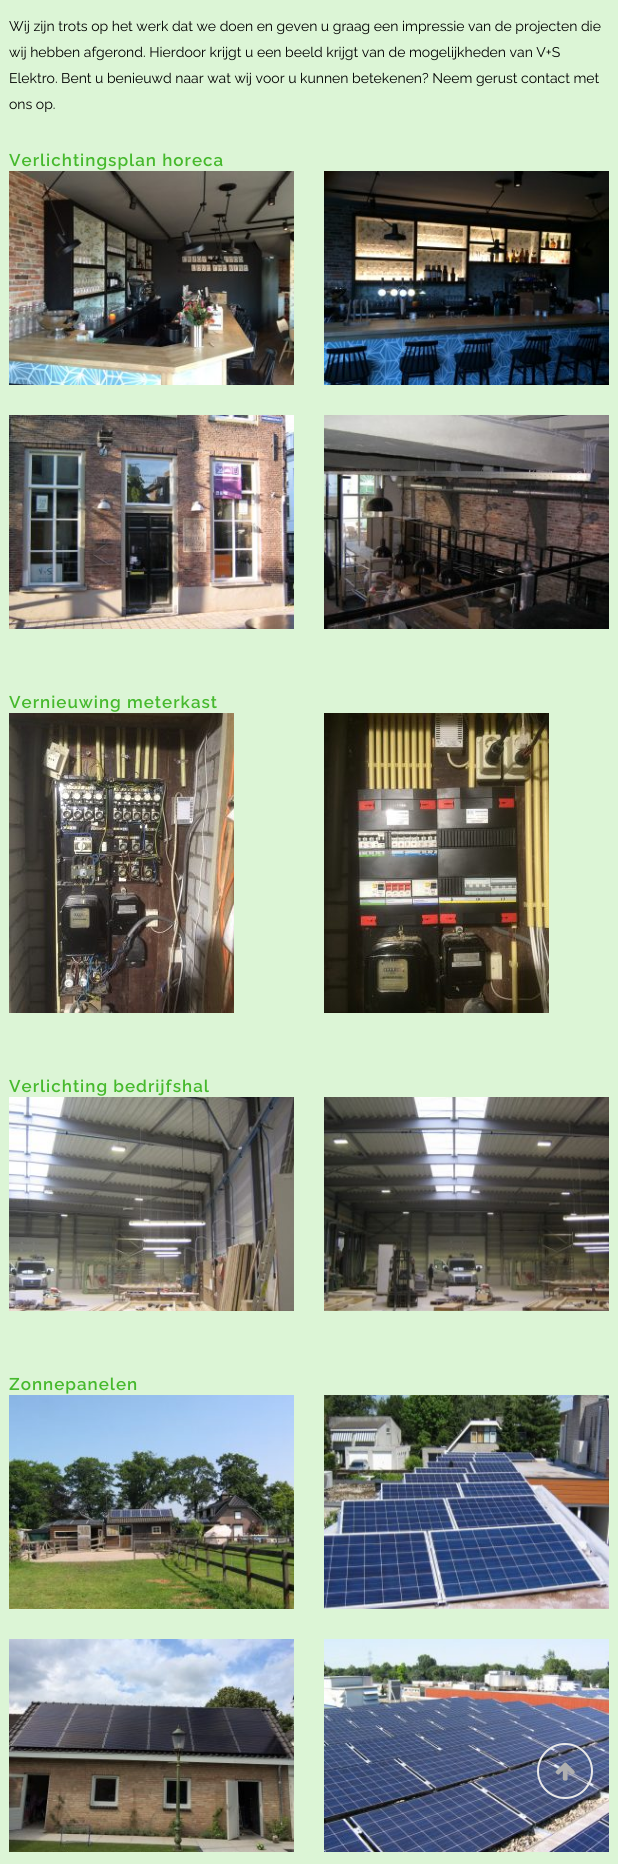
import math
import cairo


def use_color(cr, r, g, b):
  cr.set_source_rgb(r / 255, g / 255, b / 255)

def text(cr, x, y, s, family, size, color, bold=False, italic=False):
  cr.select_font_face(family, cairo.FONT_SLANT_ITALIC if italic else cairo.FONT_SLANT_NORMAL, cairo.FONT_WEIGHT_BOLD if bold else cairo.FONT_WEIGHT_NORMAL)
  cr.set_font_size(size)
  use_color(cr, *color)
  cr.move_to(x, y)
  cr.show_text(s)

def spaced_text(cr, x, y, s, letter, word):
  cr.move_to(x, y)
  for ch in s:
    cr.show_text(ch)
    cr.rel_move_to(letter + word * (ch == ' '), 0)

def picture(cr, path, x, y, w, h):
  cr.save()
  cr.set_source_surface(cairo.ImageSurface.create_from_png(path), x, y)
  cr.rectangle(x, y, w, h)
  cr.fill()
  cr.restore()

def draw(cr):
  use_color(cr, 220, 245, 214)
  cr.paint()
  picture(cr, "img_01.png", 9, 171, 285, 214)
  picture(cr, "img_02.png", 324, 171, 285, 214)
  picture(cr, "img_03.png", 9, 415, 285, 214)
  picture(cr, "img_04.png", 324, 415, 285, 214)
  picture(cr, "img_05.png", 9, 713, 225, 300)
  picture(cr, "img_06.png", 324, 713, 225, 300)
  picture(cr, "img_07.png", 9, 1097, 285, 214)
  picture(cr, "img_08.png", 324, 1097, 285, 214)
  picture(cr, "img_09.png", 9, 1395, 285, 214)
  picture(cr, "img_10.png", 324, 1395, 285, 214)
  picture(cr, "img_11.png", 9, 1639, 285, 213)
  picture(cr, "img_12.png", 324, 1639, 285, 213)
  cr.arc(565, 1771, 27, 0, 2 * math.pi)
  use_color(cr, 232, 232, 232)
  cr.stroke()
  picture(cr, "img_13.png", 555, 1762, 20, 19)
  text(cr, 9, 31, "Wij zijn trots op het werk dat we doen en geven u graag een impressie van de projecten die", "Raleway", 14, (0, 0, 0))
  text(cr, 9, 57, "wij hebben afgerond. Hierdoor krijgt u een beeld krijgt van de mogelijkheden van V+S", "Raleway", 14, (0, 0, 0))
  text(cr, 9, 83, "Elektro. Bent u benieuwd naar wat wij voor u kunnen betekenen? Neem gerust contact met", "Raleway", 14, (0, 0, 0))
  text(cr, 9, 109, "ons op.", "Raleway", 14, (0, 0, 0))
  cr.select_font_face("Raleway SemiBold")
  cr.set_font_size(17)
  use_color(cr, 70, 185, 45)
  spaced_text(cr, 9, 166, "Verlichtingsplan horeca", 1, 0)
  spaced_text(cr, 9, 708, "Vernieuwing meterkast", 1, 0)
  spaced_text(cr, 9, 1092, "Verlichting bedrijfshal", 1, 0)
  spaced_text(cr, 9, 1390, "Zonnepanelen", 1, 0)


surface = cairo.ImageSurface(cairo.FORMAT_RGB24, 618, 1864)
cr = cairo.Context(surface)
options = cairo.FontOptions()
options.set_hint_metrics(cairo.HINT_METRICS_OFF)
options.set_hint_style(cairo.HINT_STYLE_NONE)
cr.set_font_options(options)
cr.set_miter_limit(4)
draw(cr)
surface.write_to_png("out.png")
